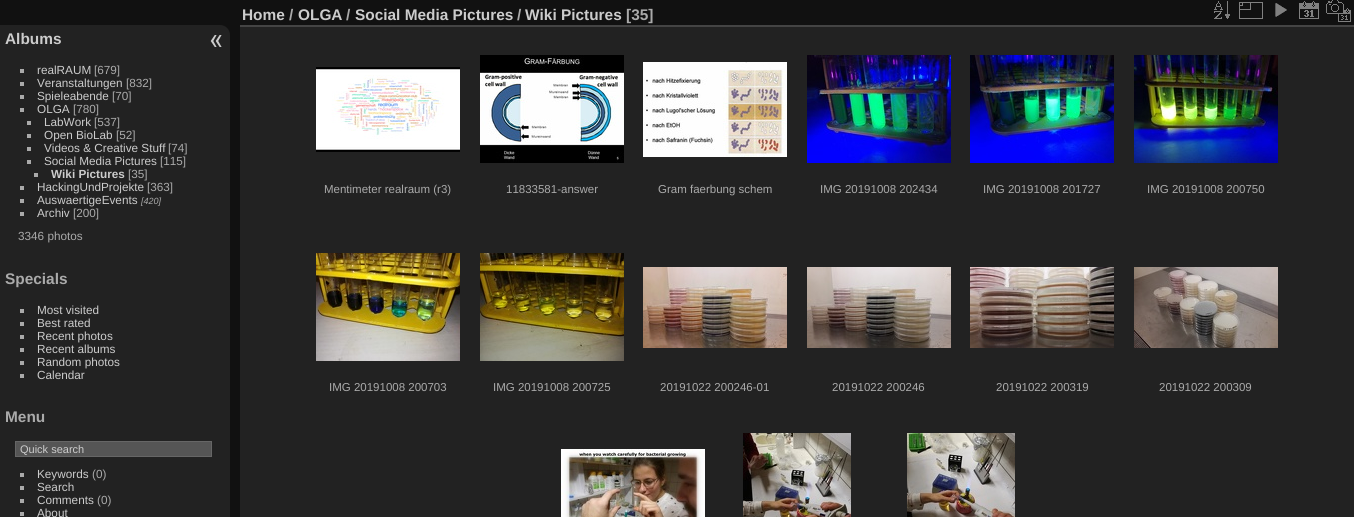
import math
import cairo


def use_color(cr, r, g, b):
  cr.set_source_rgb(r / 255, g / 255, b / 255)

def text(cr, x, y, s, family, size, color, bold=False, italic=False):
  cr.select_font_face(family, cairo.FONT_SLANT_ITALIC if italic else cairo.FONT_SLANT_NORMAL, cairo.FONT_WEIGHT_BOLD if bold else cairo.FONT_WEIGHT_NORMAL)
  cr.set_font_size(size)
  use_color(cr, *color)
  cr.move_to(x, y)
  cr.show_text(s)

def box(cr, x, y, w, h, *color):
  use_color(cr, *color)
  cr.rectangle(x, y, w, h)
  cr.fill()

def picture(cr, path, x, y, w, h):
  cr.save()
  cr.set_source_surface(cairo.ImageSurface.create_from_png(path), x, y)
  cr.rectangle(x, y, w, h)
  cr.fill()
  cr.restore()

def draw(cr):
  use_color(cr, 17, 17, 17)
  cr.paint()
  use_color(cr, 34, 34, 34)
  cr.new_path()
  cr.move_to(0, 25)
  cr.line_to(220, 25)
  cr.curve_to(225.5, 25, 230, 29.5, 230, 35)
  cr.line_to(230, 517)
  cr.curve_to(230, 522.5, 225.5, 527, 220, 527)
  cr.line_to(0, 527)
  cr.close_path()
  cr.fill()
  box(cr, 20, 69, 4, 4, 170, 170, 170)
  box(cr, 20, 82, 4, 4, 170, 170, 170)
  box(cr, 20, 95, 4, 4, 170, 170, 170)
  box(cr, 20, 108, 4, 4, 170, 170, 170)
  box(cr, 27, 121, 4, 4, 170, 170, 170)
  box(cr, 27, 134, 4, 4, 170, 170, 170)
  box(cr, 27, 147, 4, 4, 170, 170, 170)
  box(cr, 27, 160, 4, 4, 170, 170, 170)
  box(cr, 34, 173, 4, 4, 170, 170, 170)
  box(cr, 20, 186, 4, 4, 170, 170, 170)
  box(cr, 20, 199, 4, 4, 170, 170, 170)
  box(cr, 20, 212, 4, 4, 170, 170, 170)
  box(cr, 20, 309, 4, 4, 170, 170, 170)
  box(cr, 20, 322, 4, 4, 170, 170, 170)
  box(cr, 20, 335, 4, 4, 170, 170, 170)
  box(cr, 20, 348, 4, 4, 170, 170, 170)
  box(cr, 20, 361, 4, 4, 170, 170, 170)
  box(cr, 20, 374, 4, 4, 170, 170, 170)
  use_color(cr, 85, 85, 85)
  cr.rectangle(15.5, 441.5, 196, 15)
  cr.fill_preserve()
  use_color(cr, 102, 102, 102)
  cr.set_line_width(1)
  cr.stroke()
  box(cr, 20, 473, 4, 4, 170, 170, 170)
  box(cr, 20, 486, 4, 4, 170, 170, 170)
  box(cr, 20, 499, 4, 4, 170, 170, 170)
  box(cr, 20, 512, 4, 4, 170, 170, 170)
  picture(cr, "img_01.png", 210, 35, 12, 12)
  box(cr, 240, 27, 1114, 490, 34, 34, 34)
  box(cr, 240, 25, 1114, 2, 68, 68, 68)
  picture(cr, "img_02.png", 1214, 1, 16, 18)
  picture(cr, "img_03.png", 1239, 2, 24, 17)
  picture(cr, "img_04.png", 1275, 3, 12, 14)
  picture(cr, "img_05.png", 1299, 1, 20, 18)
  picture(cr, "img_06.png", 1326, 0, 25, 22)
  picture(cr, "img_07.png", 316, 67, 144, 85)
  picture(cr, "img_08.png", 480, 55, 144, 108)
  picture(cr, "img_09.png", 643, 62, 144, 95)
  picture(cr, "img_10.png", 807, 55, 144, 108)
  picture(cr, "img_11.png", 970, 55, 144, 108)
  picture(cr, "img_12.png", 1134, 55, 144, 108)
  picture(cr, "img_13.png", 316, 253, 144, 108)
  picture(cr, "img_14.png", 480, 253, 144, 108)
  picture(cr, "img_15.png", 643, 267, 144, 81)
  picture(cr, "img_16.png", 807, 267, 144, 81)
  picture(cr, "img_17.png", 970, 267, 144, 81)
  picture(cr, "img_18.png", 1134, 267, 144, 81)
  picture(cr, "img_19.png", 561, 449, 144, 68)
  picture(cr, "img_20.png", 743, 433, 108, 84)
  picture(cr, "img_21.png", 907, 433, 108, 84)
  text(cr, 5, 44, "Albums", "Liberation Sans", 15.4, (204, 204, 204), bold=True)
  text(cr, 37, 74, "realRAUM", "Liberation Sans", 11.75, (204, 204, 204))
  text(cr, 94, 74, "[679]", "Liberation Sans", 11.75, (170, 170, 170))
  text(cr, 37, 87, "Veranstaltungen", "Liberation Sans", 11.75, (204, 204, 204))
  text(cr, 126, 87, "[832]", "Liberation Sans", 11.75, (170, 170, 170))
  text(cr, 37, 100, "Spieleabende", "Liberation Sans", 11.75, (204, 204, 204))
  text(cr, 112, 100, "[70]", "Liberation Sans", 11.75, (170, 170, 170))
  text(cr, 37, 113, "OLGA", "Liberation Sans", 11.75, (204, 204, 204))
  text(cr, 73, 113, "[780]", "Liberation Sans", 11.75, (170, 170, 170))
  text(cr, 44, 126, "LabWork", "Liberation Sans", 11.75, (204, 204, 204))
  text(cr, 94, 126, "[537]", "Liberation Sans", 11.75, (170, 170, 170))
  text(cr, 44, 139, "Open BioLab", "Liberation Sans", 11.75, (204, 204, 204))
  text(cr, 116, 139, "[52]", "Liberation Sans", 11.75, (170, 170, 170))
  text(cr, 44, 152, "Videos & Creative Stuff", "Liberation Sans", 11.75, (204, 204, 204))
  text(cr, 168, 152, "[74]", "Liberation Sans", 11.75, (170, 170, 170))
  text(cr, 44, 165, "Social Media Pictures", "Liberation Sans", 11.75, (204, 204, 204))
  text(cr, 160, 165, "[115]", "Liberation Sans", 11.75, (170, 170, 170))
  text(cr, 51, 178, "Wiki Pictures", "Liberation Sans", 11.75, (204, 204, 204), bold=True)
  text(cr, 128, 178, "[35]", "Liberation Sans", 11.75, (170, 170, 170))
  text(cr, 37, 191, "HackingUndProjekte", "Liberation Sans", 11.75, (204, 204, 204))
  text(cr, 147, 191, "[363]", "Liberation Sans", 11.75, (170, 170, 170))
  text(cr, 37, 204, "AuswaertigeEvents", "Liberation Sans", 11.75, (204, 204, 204))
  text(cr, 141, 204, "[420]", "Liberation Sans", 9, (170, 170, 170), italic=True)
  text(cr, 37, 217, "Archiv", "Liberation Sans", 11.75, (204, 204, 204))
  text(cr, 73, 217, "[200]", "Liberation Sans", 11.75, (170, 170, 170))
  text(cr, 18, 240, "3346 photos", "Liberation Sans", 11.75, (170, 170, 170))
  text(cr, 5, 284, "Specials", "Liberation Sans", 15.4, (170, 170, 170), bold=True)
  text(cr, 37, 314, "Most visited", "Liberation Sans", 11.75, (204, 204, 204))
  text(cr, 37, 327, "Best rated", "Liberation Sans", 11.75, (204, 204, 204))
  text(cr, 37, 340, "Recent photos", "Liberation Sans", 11.75, (204, 204, 204))
  text(cr, 37, 353, "Recent albums", "Liberation Sans", 11.75, (204, 204, 204))
  text(cr, 37, 366, "Random photos", "Liberation Sans", 11.75, (204, 204, 204))
  text(cr, 37, 379, "Calendar", "Liberation Sans", 11.75, (204, 204, 204))
  text(cr, 5, 422, "Menu", "Liberation Sans", 15.4, (170, 170, 170), bold=True)
  text(cr, 20, 453, "Quick search", "Liberation Sans", 11, (204, 204, 204))
  text(cr, 37, 478, "Keywords", "Liberation Sans", 11.75, (204, 204, 204))
  text(cr, 92, 478, "(0)", "Liberation Sans", 11.75, (170, 170, 170))
  text(cr, 37, 491, "Search", "Liberation Sans", 11.75, (204, 204, 204))
  text(cr, 37, 504, "Comments", "Liberation Sans", 11.75, (204, 204, 204))
  text(cr, 97, 504, "(0)", "Liberation Sans", 11.75, (170, 170, 170))
  text(cr, 37, 517, "About", "Liberation Sans", 11.75, (204, 204, 204))
  text(cr, 242, 20, "Home", "Liberation Sans", 15.4, (204, 204, 204), bold=True)
  text(cr, 289, 20, "/", "Liberation Sans", 15.4, (170, 170, 170), bold=True)
  text(cr, 298, 20, "OLGA", "Liberation Sans", 15.4, (204, 204, 204), bold=True)
  text(cr, 346, 20, "/", "Liberation Sans", 15.4, (170, 170, 170), bold=True)
  text(cr, 355, 20, "Social Media Pictures", "Liberation Sans", 15.4, (204, 204, 204), bold=True)
  text(cr, 517, 20, "/", "Liberation Sans", 15.4, (170, 170, 170), bold=True)
  text(cr, 525, 20, "Wiki Pictures", "Liberation Sans", 15.4, (204, 204, 204), bold=True)
  text(cr, 626, 20, "[35]", "Liberation Sans", 15.4, (170, 170, 170), bold=True)
  text(cr, 324, 193, "Mentimeter realraum (r3)", "Liberation Sans", 11.5, (170, 170, 170))
  text(cr, 506, 193, "11833581-answer", "Liberation Sans", 11.5, (170, 170, 170))
  text(cr, 658, 193, "Gram faerbung schem", "Liberation Sans", 11.5, (170, 170, 170))
  text(cr, 820, 193, "IMG 20191008 202434", "Liberation Sans", 11.5, (170, 170, 170))
  text(cr, 983, 193, "IMG 20191008 201727", "Liberation Sans", 11.5, (170, 170, 170))
  text(cr, 1147, 193, "IMG 20191008 200750", "Liberation Sans", 11.5, (170, 170, 170))
  text(cr, 329, 391, "IMG 20191008 200703", "Liberation Sans", 11.5, (170, 170, 170))
  text(cr, 493, 391, "IMG 20191008 200725", "Liberation Sans", 11.5, (170, 170, 170))
  text(cr, 660, 391, "20191022 200246-01", "Liberation Sans", 11.5, (170, 170, 170))
  text(cr, 832, 391, "20191022 200246", "Liberation Sans", 11.5, (170, 170, 170))
  text(cr, 996, 391, "20191022 200319", "Liberation Sans", 11.5, (170, 170, 170))
  text(cr, 1159, 391, "20191022 200309", "Liberation Sans", 11.5, (170, 170, 170))


surface = cairo.ImageSurface(cairo.FORMAT_RGB24, 1354, 517)
cr = cairo.Context(surface)
options = cairo.FontOptions()
options.set_hint_metrics(cairo.HINT_METRICS_OFF)
options.set_hint_style(cairo.HINT_STYLE_NONE)
cr.set_font_options(options)
cr.set_miter_limit(4)
draw(cr)
surface.write_to_png("out.png")
